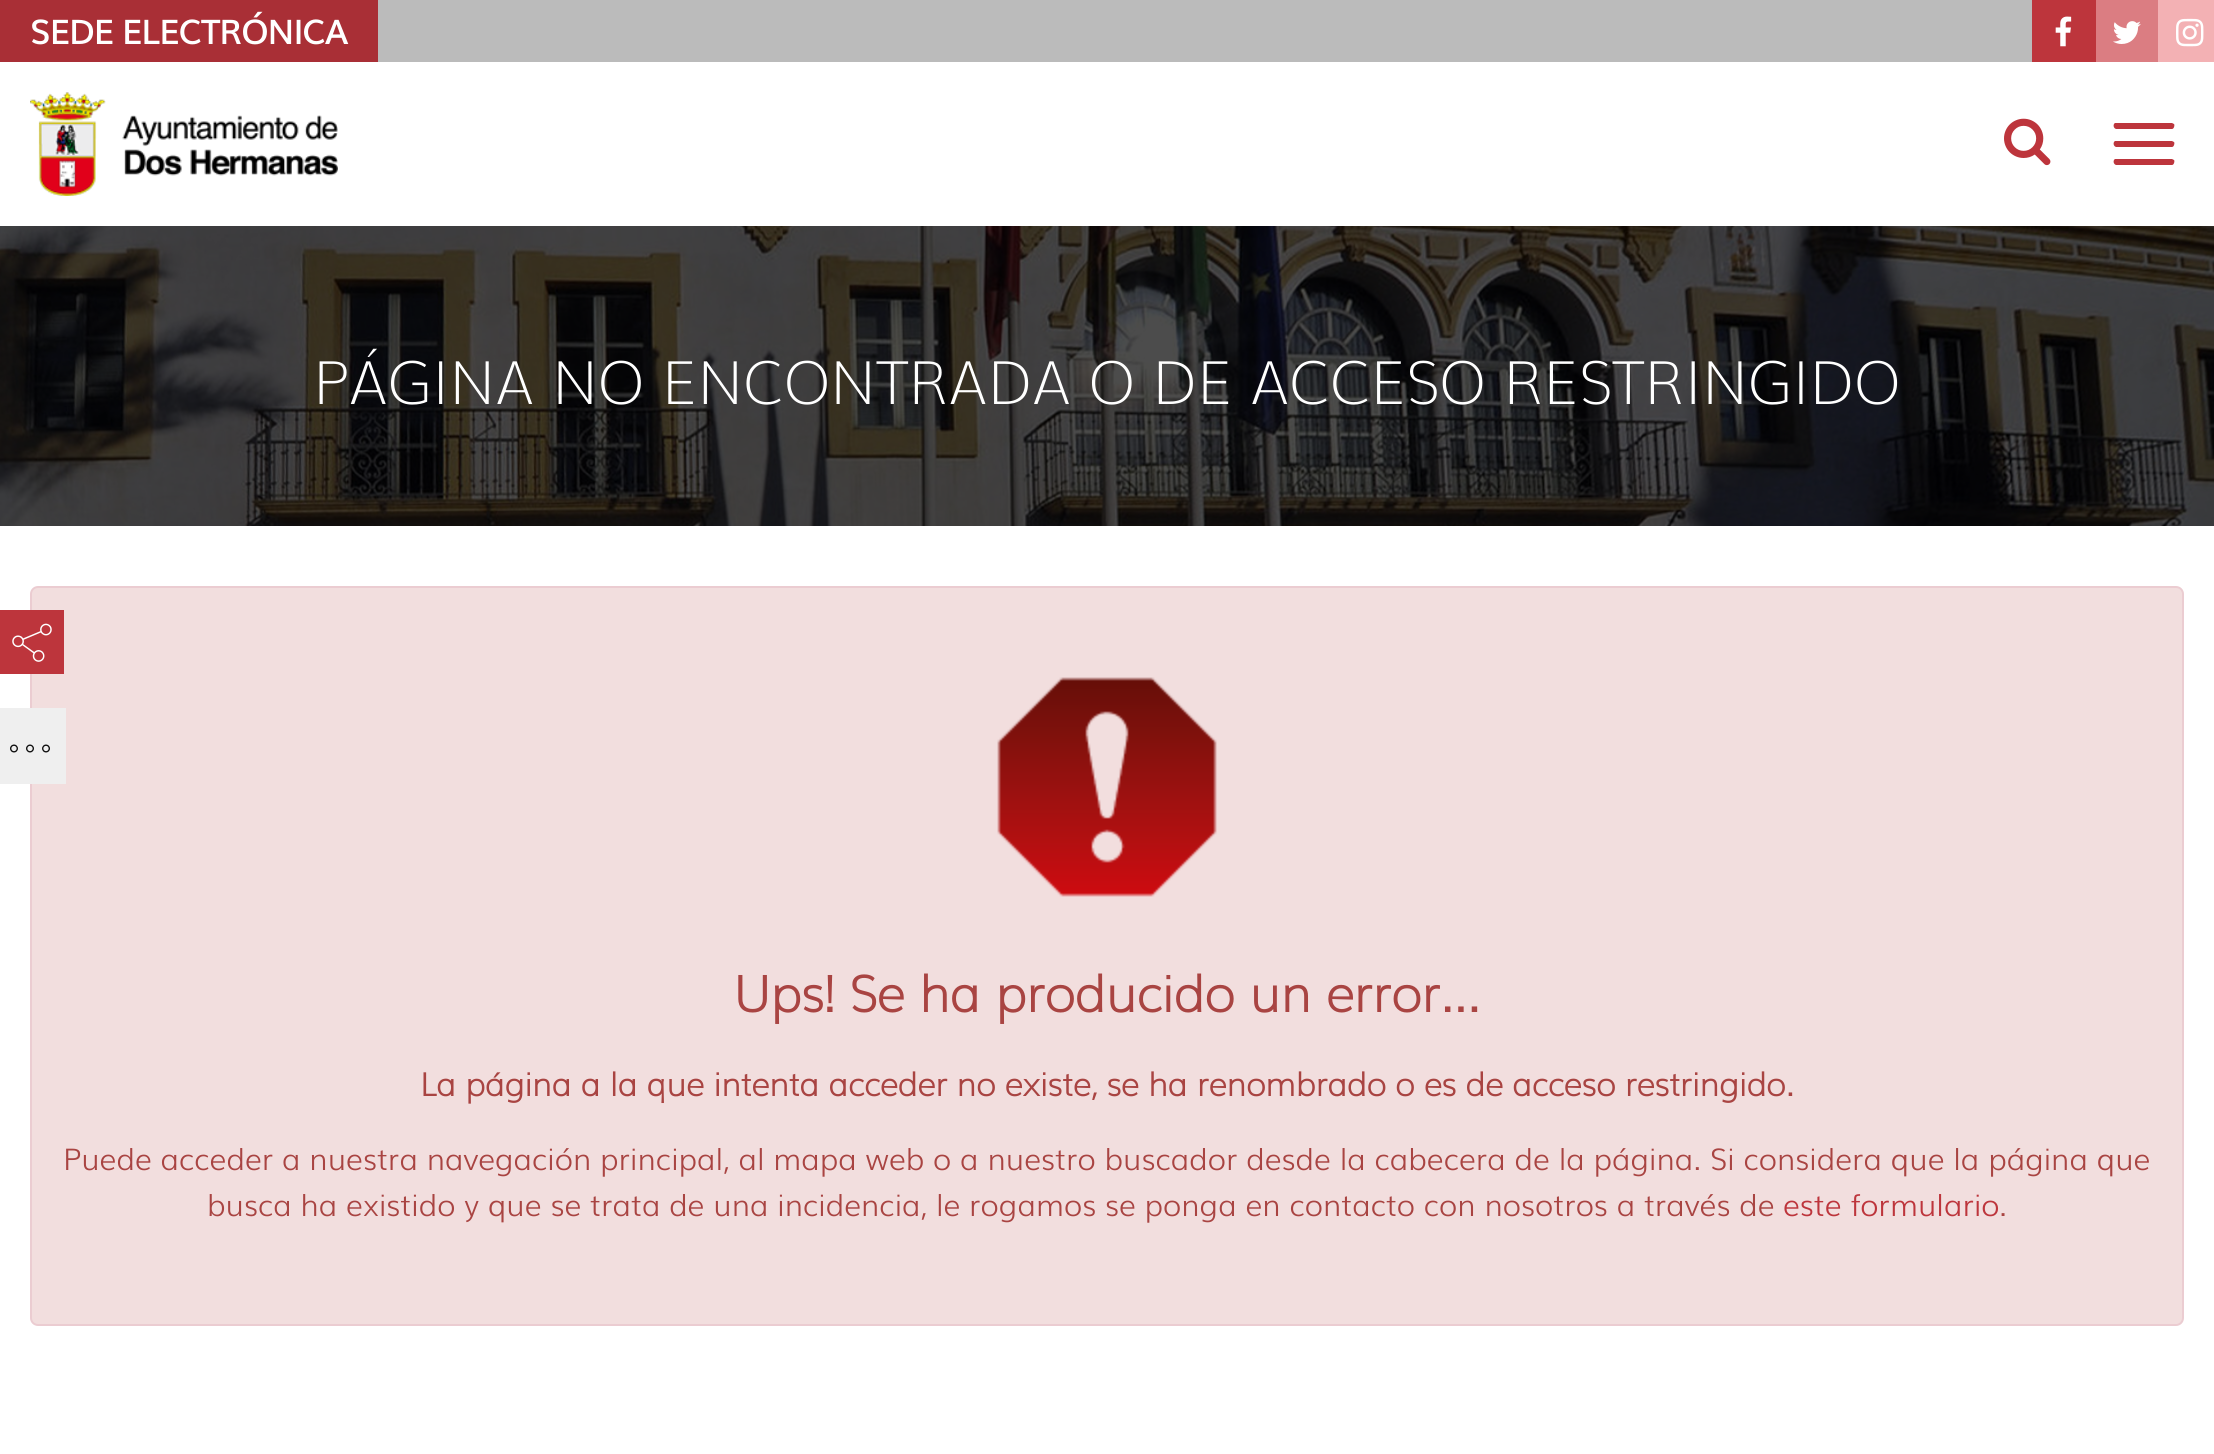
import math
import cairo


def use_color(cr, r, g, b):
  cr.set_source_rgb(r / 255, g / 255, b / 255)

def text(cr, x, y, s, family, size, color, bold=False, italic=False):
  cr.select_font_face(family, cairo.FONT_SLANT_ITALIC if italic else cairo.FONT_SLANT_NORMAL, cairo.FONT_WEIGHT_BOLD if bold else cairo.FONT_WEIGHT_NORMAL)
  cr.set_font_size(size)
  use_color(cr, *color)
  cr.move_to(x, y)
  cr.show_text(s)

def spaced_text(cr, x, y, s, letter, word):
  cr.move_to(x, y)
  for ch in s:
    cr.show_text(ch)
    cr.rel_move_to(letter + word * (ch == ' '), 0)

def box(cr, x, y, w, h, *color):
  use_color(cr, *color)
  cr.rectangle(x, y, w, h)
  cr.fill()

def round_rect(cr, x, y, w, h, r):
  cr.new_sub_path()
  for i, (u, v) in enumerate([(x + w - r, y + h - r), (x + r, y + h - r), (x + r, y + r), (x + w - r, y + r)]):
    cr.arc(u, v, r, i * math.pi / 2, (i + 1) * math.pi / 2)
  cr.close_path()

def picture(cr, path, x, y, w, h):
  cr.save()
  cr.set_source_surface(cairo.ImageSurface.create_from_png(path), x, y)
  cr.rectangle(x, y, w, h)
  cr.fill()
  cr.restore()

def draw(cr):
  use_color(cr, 255, 255, 255)
  cr.paint()
  box(cr, 378, 0, 1654, 62, 187, 187, 187)
  box(cr, 0, 0, 378, 62, 169, 47, 54)
  box(cr, 2032, 0, 64, 62, 189, 53, 60)
  picture(cr, "img_01.png", 2055, 16, 17, 31)
  box(cr, 2096, 0, 62, 62, 219, 125, 130)
  picture(cr, "img_02.png", 2113, 21, 28, 23)
  box(cr, 2158, 0, 56, 62, 243, 177, 180)
  picture(cr, "img_03.png", 2176, 18, 28, 29)
  picture(cr, "img_04.png", 30, 92, 308, 104)
  picture(cr, "img_05.png", 2004, 118, 47, 48)
  use_color(cr, 189, 53, 60)
  cr.new_path()
  cr.move_to(2172, 129)
  cr.line_to(2116, 129)
  cr.curve_to(2113, 128, 2113, 124, 2115, 123)
  cr.line_to(2172, 123)
  cr.line_to(2174, 124)
  cr.curve_to(2175, 125, 2174, 129, 2172, 129)
  cr.close_path()
  cr.move_to(2172, 147)
  cr.line_to(2116, 147)
  cr.curve_to(2113, 146, 2113, 142, 2115, 141)
  cr.line_to(2172, 141)
  cr.line_to(2174, 142)
  cr.curve_to(2175, 143, 2174, 147, 2172, 147)
  cr.close_path()
  cr.move_to(2172, 165)
  cr.line_to(2116, 165)
  cr.curve_to(2113, 164, 2113, 160, 2115, 159)
  cr.line_to(2172, 159)
  cr.line_to(2174, 160)
  cr.curve_to(2175, 161, 2174, 165, 2172, 165)
  cr.close_path()
  cr.fill()
  picture(cr, "img_06.png", 0, 226, 2214, 300)
  use_color(cr, 242, 222, 222)
  round_rect(cr, 31, 587, 2152, 738, 7)
  cr.fill_preserve()
  use_color(cr, 235, 204, 209)
  cr.stroke()
  picture(cr, "img_07.png", 997, 677, 220, 220)
  box(cr, 0, 610, 64, 64, 189, 53, 60)
  picture(cr, "img_08.png", 12, 623, 40, 39)
  box(cr, 0, 708, 66, 76, 239, 239, 239)
  picture(cr, "img_09.png", 10, 744, 40, 9)
  cr.select_font_face("Muli SemiBold")
  cr.set_font_size(34)
  use_color(cr, 255, 255, 255)
  spaced_text(cr, 30, 44, "SEDE ELECTRÓNICA", -1, 0)
  text(cr, 313, 404, "PÁGINA NO ENCONTRADA O DE ACCESO RESTRINGIDO", "Muli ExtraLight", 60, (255, 255, 255))
  text(cr, 734, 1012, "Ups! Se ha producido un error...", "Muli", 50, (169, 68, 66), bold=True)
  text(cr, 420, 1096, "La página a la que intenta acceder no existe, se ha renombrado o es de acceso restringido.", "Muli", 32, (169, 68, 66), bold=True)
  text(cr, 63, 1170, "Puede acceder a nuestra navegación principal, al mapa web o a nuestro buscador desde la cabecera de la página. Si considera que la página que", "Muli Light", 30, (169, 68, 66))
  text(cr, 207, 1216, "busca ha existido y que se trata de una incidencia, le rogamos se ponga en contacto con nosotros a través de", "Muli Light", 30, (169, 68, 66))
  text(cr, 1783, 1216, "este formulario", "Muli Light", 30, (189, 53, 60))
  text(cr, 1999, 1216, ".", "Muli Light", 30, (169, 68, 66))


surface = cairo.ImageSurface(cairo.FORMAT_RGB24, 2214, 1454)
cr = cairo.Context(surface)
options = cairo.FontOptions()
options.set_hint_metrics(cairo.HINT_METRICS_OFF)
options.set_hint_style(cairo.HINT_STYLE_NONE)
cr.set_font_options(options)
cr.set_miter_limit(4)
draw(cr)
surface.write_to_png("out.png")
